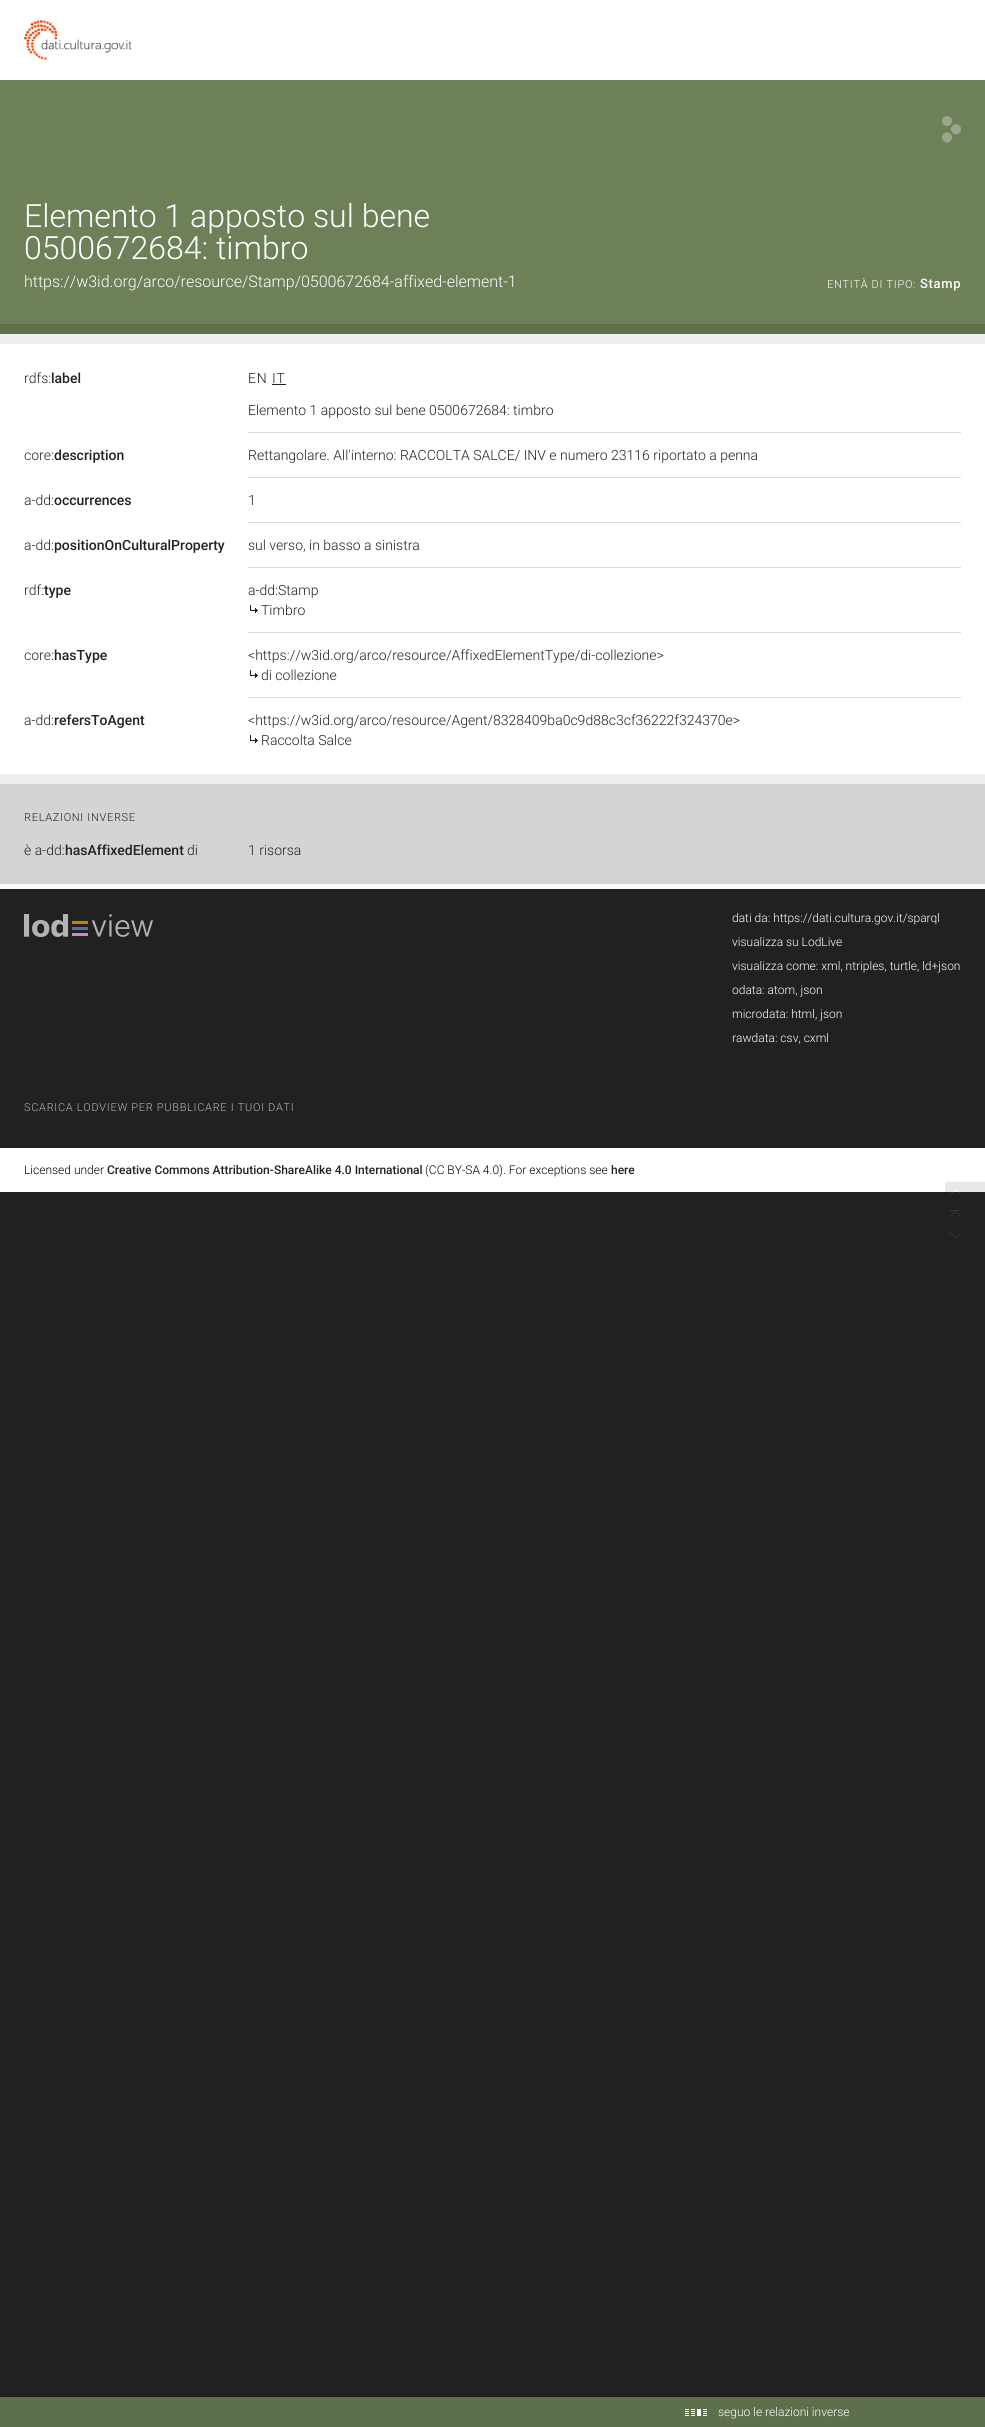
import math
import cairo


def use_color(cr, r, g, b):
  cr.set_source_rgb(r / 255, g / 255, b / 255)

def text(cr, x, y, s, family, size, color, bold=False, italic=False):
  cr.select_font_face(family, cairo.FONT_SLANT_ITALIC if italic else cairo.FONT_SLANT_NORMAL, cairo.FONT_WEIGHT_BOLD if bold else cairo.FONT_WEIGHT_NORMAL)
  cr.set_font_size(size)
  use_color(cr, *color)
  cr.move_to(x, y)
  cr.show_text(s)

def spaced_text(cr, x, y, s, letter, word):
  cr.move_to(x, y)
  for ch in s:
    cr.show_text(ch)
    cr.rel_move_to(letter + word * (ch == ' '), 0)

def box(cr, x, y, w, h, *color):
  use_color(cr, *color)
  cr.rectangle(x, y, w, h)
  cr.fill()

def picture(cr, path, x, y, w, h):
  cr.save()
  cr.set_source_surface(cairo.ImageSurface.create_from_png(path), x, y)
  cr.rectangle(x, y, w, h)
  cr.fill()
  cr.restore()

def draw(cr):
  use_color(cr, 33, 33, 33)
  cr.paint()
  box(cr, 0, 0, 985, 80, 255, 255, 255)
  picture(cr, "img_01.png", 24, 20, 108, 40)
  box(cr, 0, 80, 985, 244, 109, 128, 88)
  picture(cr, "img_02.png", 942, 116, 19, 27)
  box(cr, 0, 324, 985, 10, 94, 111, 76)
  box(cr, 0, 334, 985, 10, 238, 238, 238)
  box(cr, 0, 344, 985, 430, 255, 255, 255)
  box(cr, 248, 432, 713, 1, 219, 219, 219)
  box(cr, 272, 384, 14, 1, 33, 33, 33)
  box(cr, 248, 477, 713, 1, 219, 219, 219)
  box(cr, 248, 522, 713, 1, 219, 219, 219)
  box(cr, 248, 567, 713, 1, 219, 219, 219)
  box(cr, 248, 632, 713, 1, 219, 219, 219)
  picture(cr, "img_03.png", 250, 605, 8, 8)
  box(cr, 248, 697, 713, 1, 219, 219, 219)
  picture(cr, "img_03.png", 250, 670, 8, 8)
  picture(cr, "img_03.png", 250, 735, 8, 8)
  box(cr, 0, 774, 985, 10, 238, 238, 238)
  box(cr, 0, 784, 985, 100, 212, 212, 212)
  box(cr, 0, 884, 985, 5, 250, 250, 250)
  picture(cr, "img_04.png", 24, 914, 129, 23)
  box(cr, 0, 1148, 985, 44, 255, 255, 255)
  picture(cr, "img_05.png", 945, 1182, 40, 13)
  picture(cr, "img_06.png", 950, 1210, 11, 7)
  picture(cr, "img_07.png", 950, 1232, 11, 6)
  box(cr, 0, 2397, 985, 30, 94, 111, 76)
  picture(cr, "img_08.png", 685, 2409, 22, 7)
  text(cr, 24, 227, "Elemento 1 apposto sul bene", "Roboto Light", 32, (255, 255, 255))
  text(cr, 24, 259, "0500672684: timbro", "Roboto Light", 32, (255, 255, 255))
  text(cr, 24, 287, "https://w3id.org/arco/resource/Stamp/0500672684-affixed-element-1", "Roboto Light", 16, (255, 255, 255))
  cr.set_font_size(11)
  spaced_text(cr, 827, 288, "ENTITÀ DI TIPO:", 0.7, 0)
  cr.select_font_face("Roboto Medium")
  cr.set_font_size(13)
  spaced_text(cr, 920, 288, "Stamp", 0.7, 0)
  text(cr, 24, 383, "rdfs:", "Roboto Light", 14, (34, 34, 34))
  text(cr, 51, 383, "label", "Roboto Medium", 14, (34, 34, 34))
  cr.select_font_face("Roboto Light")
  spaced_text(cr, 248, 383, "EN", 0.7, 0)
  spaced_text(cr, 272, 383, "IT", 0.7, 0)
  text(cr, 248, 415, "Elemento 1 apposto sul bene 0500672684: timbro", "Roboto Light", 14, (34, 34, 34))
  text(cr, 24, 460, "core:", "Roboto Light", 14, (34, 34, 34))
  text(cr, 54, 460, "description", "Roboto Medium", 14, (34, 34, 34))
  text(cr, 248, 460, "Rettangolare. All'interno: RACCOLTA SALCE/ INV e numero 23116 riportato a penna", "Roboto Light", 14, (34, 34, 34))
  text(cr, 24, 505, "a-dd:", "Roboto Light", 14, (34, 34, 34))
  text(cr, 54, 505, "occurrences", "Roboto Medium", 14, (34, 34, 34))
  text(cr, 248, 505, "1", "Roboto Light", 14, (34, 34, 34))
  text(cr, 24, 550, "a-dd:", "Roboto Light", 14, (34, 34, 34))
  text(cr, 54, 550, "positionOnCulturalProperty", "Roboto Medium", 14, (34, 34, 34))
  text(cr, 248, 550, "sul verso, in basso a sinistra", "Roboto Light", 14, (34, 34, 34))
  text(cr, 24, 595, "rdf:", "Roboto Light", 14, (34, 34, 34))
  text(cr, 44, 595, "type", "Roboto Medium", 14, (34, 34, 34))
  text(cr, 248, 595, "a-dd:Stamp", "Roboto Light", 14, (34, 34, 34))
  text(cr, 261, 615, "Timbro", "Roboto Light", 14, (34, 34, 34))
  text(cr, 24, 660, "core:", "Roboto Light", 14, (34, 34, 34))
  text(cr, 54, 660, "hasType", "Roboto Medium", 14, (34, 34, 34))
  text(cr, 248, 660, "<https://w3id.org/arco/resource/AffixedElementType/di-collezione>", "Roboto Light", 14, (34, 34, 34))
  text(cr, 261, 680, "di collezione", "Roboto Light", 14, (34, 34, 34))
  text(cr, 24, 725, "a-dd:", "Roboto Light", 14, (34, 34, 34))
  text(cr, 54, 725, "refersToAgent", "Roboto Medium", 14, (34, 34, 34))
  text(cr, 248, 725, "<https://w3id.org/arco/resource/Agent/8328409ba0c9d88c3cf36222f324370e>", "Roboto Light", 14, (34, 34, 34))
  text(cr, 261, 745, "Raccolta Salce", "Roboto Light", 14, (34, 34, 34))
  cr.set_font_size(11)
  spaced_text(cr, 24, 821, "RELAZIONI INVERSE", 0.7, 0)
  text(cr, 24, 855, "è a-dd:", "Roboto Light", 14, (34, 34, 34))
  text(cr, 65, 855, "hasAffixedElement", "Roboto Medium", 14, (34, 34, 34))
  text(cr, 187, 855, "di", "Roboto Light", 14, (34, 34, 34))
  text(cr, 248, 855, "1 risorsa", "Roboto Light", 14, (34, 34, 34))
  text(cr, 732, 922, "dati da: https://dati.cultura.gov.it/sparql", "Roboto Light", 12, (255, 255, 255))
  text(cr, 732, 946, "visualizza su LodLive", "Roboto Light", 12, (255, 255, 255))
  text(cr, 732, 970, "visualizza come: xml, ntriples, turtle, ld+json", "Roboto Light", 12, (255, 255, 255))
  text(cr, 732, 994, "odata: atom, json", "Roboto Light", 12, (255, 255, 255))
  text(cr, 732, 1018, "microdata: html, json", "Roboto Light", 12, (255, 255, 255))
  text(cr, 732, 1042, "rawdata: csv, cxml", "Roboto Light", 12, (255, 255, 255))
  cr.set_font_size(11)
  use_color(cr, 180, 180, 180)
  spaced_text(cr, 24, 1111, "SCARICA LODVIEW PER PUBBLICARE I TUOI DATI", 0.7, 0)
  text(cr, 24, 1174, "Licensed under", "Roboto Light", 12, (0, 0, 0))
  text(cr, 107, 1174, "Creative Commons Attribution-ShareAlike 4.0 International", "Roboto Medium", 12, (34, 34, 34))
  text(cr, 425, 1174, "(CC BY-SA 4.0). For exceptions see", "Roboto Light", 12, (0, 0, 0))
  text(cr, 611, 1174, "here", "Roboto Medium", 12, (34, 34, 34))
  text(cr, 718, 2416, "seguo le relazioni inverse", "Roboto Light", 12, (255, 255, 255))


surface = cairo.ImageSurface(cairo.FORMAT_RGB24, 985, 2427)
cr = cairo.Context(surface)
options = cairo.FontOptions()
options.set_hint_metrics(cairo.HINT_METRICS_OFF)
options.set_hint_style(cairo.HINT_STYLE_NONE)
cr.set_font_options(options)
cr.set_miter_limit(4)
draw(cr)
surface.write_to_png("out.png")
